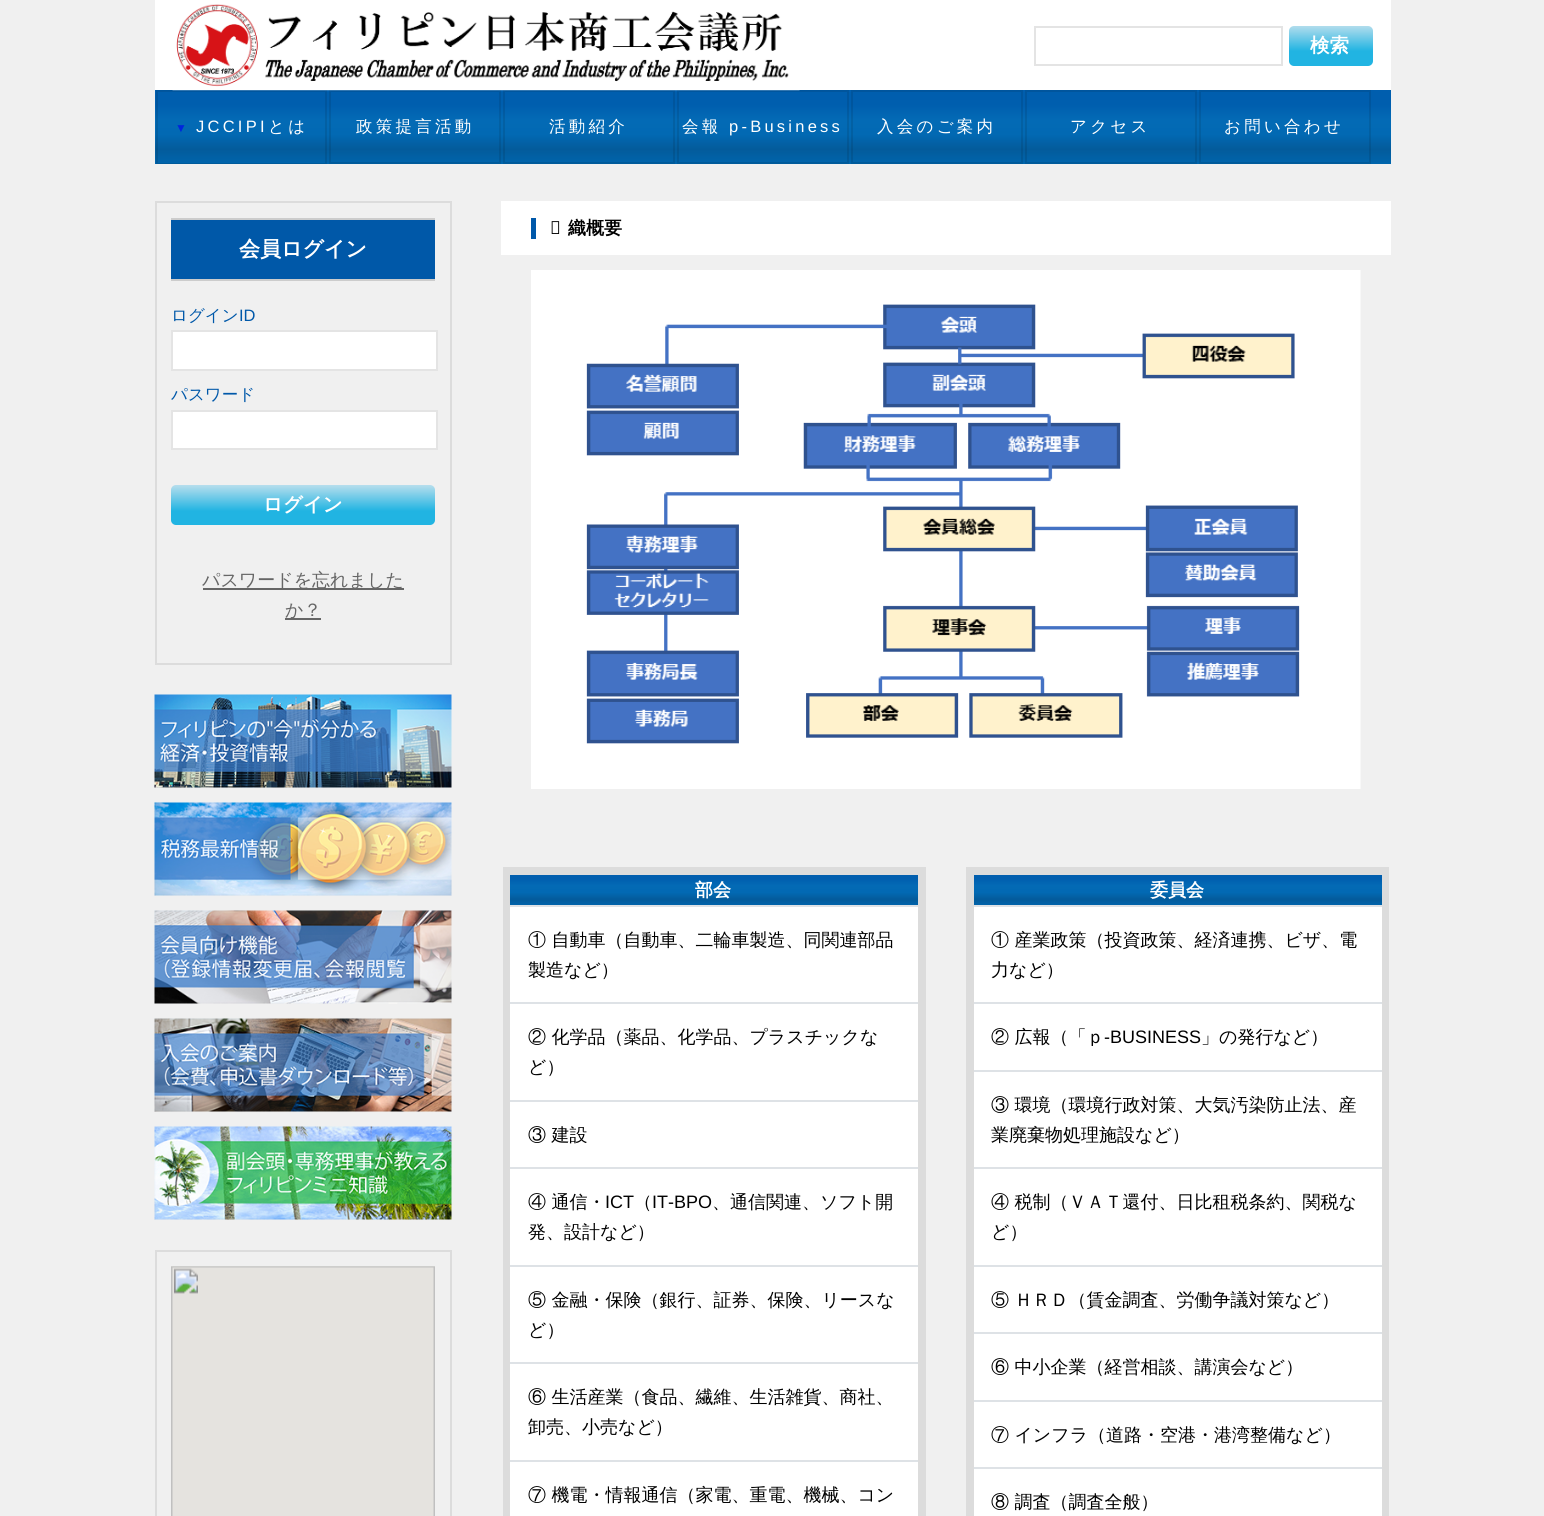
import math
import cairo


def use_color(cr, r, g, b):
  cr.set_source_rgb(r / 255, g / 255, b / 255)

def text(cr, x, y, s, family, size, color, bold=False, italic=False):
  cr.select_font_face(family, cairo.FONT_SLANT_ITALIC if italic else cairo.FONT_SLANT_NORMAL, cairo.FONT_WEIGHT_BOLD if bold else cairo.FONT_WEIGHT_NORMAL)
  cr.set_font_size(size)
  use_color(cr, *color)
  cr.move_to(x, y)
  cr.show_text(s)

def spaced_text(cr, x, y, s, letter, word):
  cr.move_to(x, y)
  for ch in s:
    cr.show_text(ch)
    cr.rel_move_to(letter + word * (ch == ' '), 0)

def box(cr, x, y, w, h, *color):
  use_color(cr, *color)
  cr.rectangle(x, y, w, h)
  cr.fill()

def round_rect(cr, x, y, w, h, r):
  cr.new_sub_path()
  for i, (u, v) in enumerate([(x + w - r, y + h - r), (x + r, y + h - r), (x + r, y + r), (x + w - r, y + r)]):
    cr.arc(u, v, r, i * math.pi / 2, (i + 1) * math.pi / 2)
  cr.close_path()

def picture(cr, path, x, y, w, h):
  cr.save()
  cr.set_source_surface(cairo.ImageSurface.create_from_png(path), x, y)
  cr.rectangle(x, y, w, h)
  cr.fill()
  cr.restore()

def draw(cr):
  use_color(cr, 240, 240, 240)
  cr.paint()
  box(cr, 155, 0, 1236, 90, 255, 255, 255)
  gradient = cairo.LinearGradient(773, 90, 773, 164)
  gradient.add_color_stop_rgba(0, 0, 0.369, 0.682, 1)
  gradient.add_color_stop_rgba(0.2, 0, 0.369, 0.682, 1)
  gradient.add_color_stop_rgba(0.4, 0.012, 0.416, 0.71, 1)
  gradient.add_color_stop_rgba(0.6, 0.008, 0.412, 0.702, 1)
  gradient.add_color_stop_rgba(0.8, 0.012, 0.357, 0.608, 1)
  gradient.add_color_stop_rgba(1, 0, 0.396, 0.678, 1)
  cr.set_source(gradient)
  cr.rectangle(155, 90, 1236, 74)
  cr.fill()
  cr.save()
  cr.rectangle(155, 90, 1236, 74)
  cr.clip()
  cr.rectangle(157, 91, 169, 73)
  cr.set_source_rgba(0, 0, 0, 0.1)
  cr.stroke()
  cr.restore()
  cr.rectangle(330, 91, 170, 72)
  cr.set_source_rgba(0, 0, 0, 0.1)
  cr.stroke()
  cr.rectangle(504, 91, 170, 72)
  cr.stroke()
  cr.rectangle(678, 91, 170, 72)
  cr.stroke()
  picture(cr, "img_01.png", 172, 4, 628, 87)
  cr.rectangle(1035, 27, 247, 38)
  use_color(cr, 228, 228, 228)
  cr.stroke()
  gradient = cairo.LinearGradient(1331, 25, 1331, 65)
  gradient.add_color_stop_rgba(0, 0.718, 0.871, 0.929, 1)
  gradient.add_color_stop_rgba(0.65, 0.129, 0.706, 0.886, 1)
  gradient.add_color_stop_rgba(1, 0.129, 0.706, 0.886, 1)
  cr.set_source(gradient)
  round_rect(cr, 1289, 26, 84, 40, 5)
  cr.fill()
  cr.rectangle(852, 91, 170, 72)
  cr.set_source_rgba(0, 0, 0, 0.1)
  cr.stroke()
  cr.rectangle(1026, 91, 170, 72)
  cr.stroke()
  cr.rectangle(1200, 91, 170, 72)
  cr.stroke()
  cr.rectangle(156, 202, 295, 462)
  use_color(cr, 220, 220, 220)
  cr.stroke()
  box(cr, 171, 220, 264, 59, 0, 88, 168)
  box(cr, 171, 218, 264, 2, 204, 204, 204)
  box(cr, 171, 279, 264, 2, 204, 204, 204)
  use_color(cr, 255, 255, 255)
  cr.rectangle(172, 331, 265, 39)
  cr.fill_preserve()
  use_color(cr, 228, 228, 228)
  cr.stroke()
  use_color(cr, 255, 255, 255)
  cr.rectangle(172, 411, 265, 38)
  cr.fill_preserve()
  use_color(cr, 228, 228, 228)
  cr.stroke()
  gradient = cairo.LinearGradient(303, 485, 303, 525)
  gradient.add_color_stop_rgba(0, 0.718, 0.871, 0.929, 1)
  gradient.add_color_stop_rgba(0.65, 0.129, 0.706, 0.886, 1)
  gradient.add_color_stop_rgba(1, 0.129, 0.706, 0.886, 1)
  cr.set_source(gradient)
  round_rect(cr, 171, 485, 264, 40, 5)
  cr.fill()
  box(cr, 203, 588, 201, 2, 102, 102, 102)
  box(cr, 285, 618, 36, 2, 102, 102, 102)
  picture(cr, "img_02.png", 154, 694, 298, 94)
  picture(cr, "img_03.png", 154, 802, 298, 94)
  picture(cr, "img_04.png", 154, 910, 298, 94)
  picture(cr, "img_05.png", 154, 1018, 298, 94)
  picture(cr, "img_06.png", 154, 1126, 298, 94)
  cr.rectangle(156, 1251, 295, 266)
  use_color(cr, 220, 220, 220)
  cr.stroke()
  picture(cr, "img_07.png", 171, 1266, 264, 250)
  box(cr, 501, 201, 890, 54, 255, 255, 255)
  box(cr, 531, 218, 5, 21, 0, 88, 169)
  picture(cr, "img_08.png", 531, 270, 830, 519)
  box(cr, 510, 907, 408, 609, 255, 255, 255)
  box(cr, 503, 867, 423, 8, 220, 220, 220)
  box(cr, 506, 905, 417, 2, 222, 226, 230)
  box(cr, 506, 1002, 417, 2, 222, 226, 230)
  box(cr, 506, 1100, 417, 2, 222, 226, 230)
  box(cr, 506, 1167, 417, 2, 222, 226, 230)
  box(cr, 506, 1265, 417, 2, 222, 226, 230)
  box(cr, 506, 1362, 417, 2, 222, 226, 230)
  box(cr, 506, 1460, 417, 2, 222, 226, 230)
  box(cr, 918, 867, 8, 649, 220, 220, 220)
  box(cr, 503, 867, 7, 649, 220, 220, 220)
  gradient = cairo.LinearGradient(713, 872, 713, 906)
  gradient.add_color_stop_rgba(0, 0, 0.369, 0.682, 1)
  gradient.add_color_stop_rgba(0.2, 0, 0.369, 0.682, 1)
  gradient.add_color_stop_rgba(0.4, 0.012, 0.416, 0.71, 1)
  gradient.add_color_stop_rgba(0.6, 0.008, 0.412, 0.702, 1)
  gradient.add_color_stop_rgba(0.8, 0.012, 0.357, 0.608, 1)
  gradient.add_color_stop_rgba(1, 0, 0.396, 0.678, 1)
  cr.set_source(gradient)
  cr.rectangle(510, 875, 408, 30)
  cr.fill()
  box(cr, 974, 907, 408, 609, 255, 255, 255)
  box(cr, 966, 867, 423, 8, 220, 220, 220)
  box(cr, 969, 905, 417, 2, 222, 226, 230)
  box(cr, 969, 1002, 417, 2, 222, 226, 230)
  box(cr, 969, 1070, 417, 2, 222, 226, 230)
  box(cr, 969, 1167, 417, 2, 222, 226, 230)
  box(cr, 969, 1265, 417, 2, 222, 226, 230)
  box(cr, 969, 1332, 417, 2, 222, 226, 230)
  box(cr, 969, 1400, 417, 2, 222, 226, 230)
  box(cr, 969, 1467, 417, 2, 222, 226, 230)
  box(cr, 1382, 867, 7, 649, 220, 220, 220)
  box(cr, 966, 867, 8, 649, 220, 220, 220)
  gradient = cairo.LinearGradient(1177, 872, 1177, 906)
  gradient.add_color_stop_rgba(0, 0, 0.369, 0.682, 1)
  gradient.add_color_stop_rgba(0.2, 0, 0.369, 0.682, 1)
  gradient.add_color_stop_rgba(0.4, 0.012, 0.416, 0.71, 1)
  gradient.add_color_stop_rgba(0.6, 0.008, 0.412, 0.702, 1)
  gradient.add_color_stop_rgba(0.8, 0.012, 0.357, 0.608, 1)
  gradient.add_color_stop_rgba(1, 0, 0.396, 0.678, 1)
  cr.set_source(gradient)
  cr.rectangle(974, 875, 408, 30)
  cr.fill()
  text(cr, 1310, 52, "検索", "WenQuanYi Zen Hei", 19.5, (255, 255, 255), bold=True)
  cr.select_font_face("Liberation Sans")
  cr.set_font_size(12)
  use_color(cr, 0, 37, 221)
  spaced_text(cr, 175, 132, "▼", 3.25, 0)
  cr.set_font_size(16.5)
  use_color(cr, 255, 255, 255)
  spaced_text(cr, 196, 132, "JCCIPI", 3.25, 0)
  cr.select_font_face("WenQuanYi Zen Hei Medium")
  spaced_text(cr, 268, 132, "とは", 3.25, 0)
  spaced_text(cr, 356, 132, "政策提言活動", 3.25, 0)
  spaced_text(cr, 549, 132, "活動紹介", 3.25, 0)
  spaced_text(cr, 682, 132, "会報", 3.25, 0)
  cr.select_font_face("Liberation Sans")
  spaced_text(cr, 729, 132, "p-Business", 3.25, 0)
  cr.select_font_face("WenQuanYi Zen Hei Medium")
  spaced_text(cr, 877, 132, "入会のご案内", 3.25, 0)
  spaced_text(cr, 1070, 132, "アクセス", 3.25, 0)
  spaced_text(cr, 1224, 132, "お問い合わせ", 3.25, 0)
  text(cr, 239, 256, "会員ログイン", "WenQuanYi Zen Hei", 21, (255, 255, 255), bold=True)
  text(cr, 171, 321, "ログイン", "WenQuanYi Zen Hei Medium", 16.5, (0, 88, 169))
  text(cr, 239, 321, "ID", "Liberation Sans", 16.5, (0, 88, 169))
  text(cr, 171, 400, "パスワード", "WenQuanYi Zen Hei Medium", 16.5, (0, 88, 169))
  text(cr, 263, 511, "ログイン", "WenQuanYi Zen Hei", 19.5, (255, 255, 255), bold=True)
  text(cr, 202, 586, "パスワードを忘れました", "WenQuanYi Zen Hei Medium", 18, (102, 102, 102))
  text(cr, 285, 616, "か？", "WenQuanYi Zen Hei Medium", 18, (102, 102, 102))
  text(cr, 550, 234, "組", "Noto Sans Thin", 18, (0, 0, 0))
  text(cr, 568, 234, "織概要", "WenQuanYi Zen Hei", 18, (0, 0, 0), bold=True)
  text(cr, 695, 896, "部会", "WenQuanYi Zen Hei", 18, (255, 255, 255), bold=True)
  text(cr, 528, 946, "① 自動車（自動車、二輪車製造、同関連部品", "WenQuanYi Zen Hei Medium", 18, (0, 0, 0))
  text(cr, 528, 976, "製造など）", "WenQuanYi Zen Hei Medium", 18, (0, 0, 0))
  text(cr, 528, 1043, "② 化学品（薬品、化学品、プラスチックな", "WenQuanYi Zen Hei Medium", 18, (0, 0, 0))
  text(cr, 528, 1073, "ど）", "WenQuanYi Zen Hei Medium", 18, (0, 0, 0))
  text(cr, 528, 1141, "③ 建設", "WenQuanYi Zen Hei Medium", 18, (0, 0, 0))
  text(cr, 528, 1208, "④ 通信・", "WenQuanYi Zen Hei Medium", 18, (0, 0, 0))
  text(cr, 605, 1208, "ICT", "Liberation Sans", 18, (0, 0, 0))
  text(cr, 634, 1208, "（", "WenQuanYi Zen Hei Medium", 18, (0, 0, 0))
  text(cr, 652, 1208, "IT-BPO", "Liberation Sans", 18, (0, 0, 0))
  text(cr, 712, 1208, "、通信関連、ソフト開", "WenQuanYi Zen Hei Medium", 18, (0, 0, 0))
  text(cr, 528, 1238, "発、設計など）", "WenQuanYi Zen Hei Medium", 18, (0, 0, 0))
  text(cr, 528, 1306, "⑤ 金融・保険（銀行、証券、保険、リースな", "WenQuanYi Zen Hei Medium", 18, (0, 0, 0))
  text(cr, 528, 1336, "ど）", "WenQuanYi Zen Hei Medium", 18, (0, 0, 0))
  text(cr, 528, 1403, "⑥ 生活産業（食品、繊維、生活雑貨、商社、", "WenQuanYi Zen Hei Medium", 18, (0, 0, 0))
  text(cr, 528, 1433, "卸売、小売など）", "WenQuanYi Zen Hei Medium", 18, (0, 0, 0))
  text(cr, 528, 1501, "⑦ 機電・情報通信（家電、重電、機械、コン", "WenQuanYi Zen Hei Medium", 18, (0, 0, 0))
  text(cr, 1150, 896, "委員会", "WenQuanYi Zen Hei", 18, (255, 255, 255), bold=True)
  text(cr, 991, 946, "① 産業政策（投資政策、経済連携、ビザ、電", "WenQuanYi Zen Hei Medium", 18, (0, 0, 0))
  text(cr, 991, 976, "力など）", "WenQuanYi Zen Hei Medium", 18, (0, 0, 0))
  text(cr, 991, 1043, "② 広報（「ｐ", "WenQuanYi Zen Hei Medium", 18, (0, 0, 0))
  text(cr, 1104, 1043, "-BUSINESS", "Liberation Sans", 18, (0, 0, 0))
  text(cr, 1201, 1043, "」の発行など）", "WenQuanYi Zen Hei Medium", 18, (0, 0, 0))
  text(cr, 991, 1111, "③ 環境（環境行政対策、大気汚染防止法、産", "WenQuanYi Zen Hei Medium", 18, (0, 0, 0))
  text(cr, 991, 1141, "業廃棄物処理施設など）", "WenQuanYi Zen Hei Medium", 18, (0, 0, 0))
  text(cr, 991, 1208, "④ 税制（ＶＡＴ還付、日比租税条約、関税な", "WenQuanYi Zen Hei Medium", 18, (0, 0, 0))
  text(cr, 991, 1238, "ど）", "WenQuanYi Zen Hei Medium", 18, (0, 0, 0))
  text(cr, 991, 1306, "⑤ ＨＲＤ（賃金調査、労働争議対策など）", "WenQuanYi Zen Hei Medium", 18, (0, 0, 0))
  text(cr, 991, 1373, "⑥ 中小企業（経営相談、講演会など）", "WenQuanYi Zen Hei Medium", 18, (0, 0, 0))
  text(cr, 991, 1441, "⑦ インフラ（道路・空港・港湾整備など）", "WenQuanYi Zen Hei Medium", 18, (0, 0, 0))
  text(cr, 991, 1508, "⑧ 調査（調査全般）", "WenQuanYi Zen Hei Medium", 18, (0, 0, 0))


surface = cairo.ImageSurface(cairo.FORMAT_RGB24, 1544, 1516)
cr = cairo.Context(surface)
options = cairo.FontOptions()
options.set_hint_metrics(cairo.HINT_METRICS_OFF)
options.set_hint_style(cairo.HINT_STYLE_NONE)
cr.set_font_options(options)
cr.set_miter_limit(4)
draw(cr)
surface.write_to_png("out.png")
